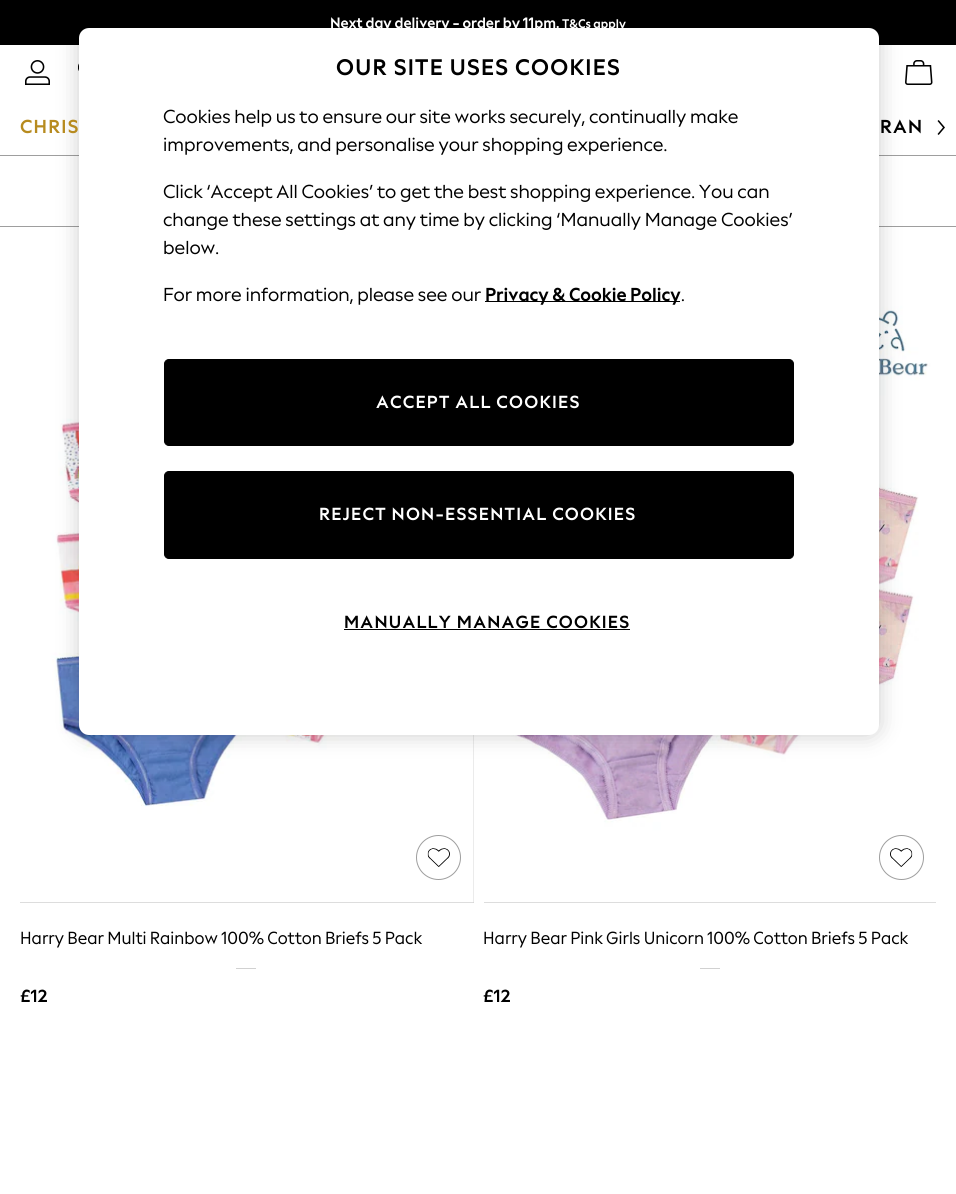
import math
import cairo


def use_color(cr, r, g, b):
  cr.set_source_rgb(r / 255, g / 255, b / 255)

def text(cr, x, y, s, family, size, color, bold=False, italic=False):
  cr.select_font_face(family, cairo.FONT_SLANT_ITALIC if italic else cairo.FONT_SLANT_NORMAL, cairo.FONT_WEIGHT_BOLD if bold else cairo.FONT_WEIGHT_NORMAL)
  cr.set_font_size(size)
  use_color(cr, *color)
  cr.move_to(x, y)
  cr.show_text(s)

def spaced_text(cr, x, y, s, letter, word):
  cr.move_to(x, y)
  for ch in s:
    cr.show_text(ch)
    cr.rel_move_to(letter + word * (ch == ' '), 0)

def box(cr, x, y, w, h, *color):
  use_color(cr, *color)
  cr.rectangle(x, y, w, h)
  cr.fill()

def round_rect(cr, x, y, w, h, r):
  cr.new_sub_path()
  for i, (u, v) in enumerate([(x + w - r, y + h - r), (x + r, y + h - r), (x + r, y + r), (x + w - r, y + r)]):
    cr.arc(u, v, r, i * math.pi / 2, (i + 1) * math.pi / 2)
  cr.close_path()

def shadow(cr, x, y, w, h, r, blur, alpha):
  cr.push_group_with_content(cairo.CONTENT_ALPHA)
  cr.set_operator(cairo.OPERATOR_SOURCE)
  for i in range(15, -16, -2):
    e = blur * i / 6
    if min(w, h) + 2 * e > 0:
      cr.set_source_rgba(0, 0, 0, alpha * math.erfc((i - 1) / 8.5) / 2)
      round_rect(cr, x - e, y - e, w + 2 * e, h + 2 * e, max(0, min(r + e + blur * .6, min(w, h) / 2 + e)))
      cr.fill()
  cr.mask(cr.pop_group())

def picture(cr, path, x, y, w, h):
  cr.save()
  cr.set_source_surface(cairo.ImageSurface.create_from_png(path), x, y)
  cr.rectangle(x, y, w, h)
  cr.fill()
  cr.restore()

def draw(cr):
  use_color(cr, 255, 255, 255)
  cr.paint()
  box(cr, 0, 0, 956, 45, 0, 0, 0)
  picture(cr, "img_01.png", 25, 60, 25, 25)
  picture(cr, "img_02.png", 78, 63, 1, 8)
  picture(cr, "img_03.png", 905, 60, 28, 25)
  picture(cr, "img_04.png", 937, 120, 8, 15)
  box(cr, 0, 155, 956, 1, 158, 158, 158)
  box(cr, 0, 226, 956, 1, 158, 158, 158)
  box(cr, 20, 735, 454, 168, 209, 209, 209)
  picture(cr, "img_05.png", 20, 299, 454, 604)
  box(cr, 484, 902, 452, 1, 209, 209, 209)
  picture(cr, "img_07.png", 484, 299, 452, 604)
  use_color(cr, 0, 0, 0)
  shadow(cr, 79, 28, 800, 707, 10, 11, 0.2)
  use_color(cr, 255, 255, 255)
  round_rect(cr, 79, 28, 800, 707, 10)
  cr.fill()
  box(cr, 485, 301, 195, 1, 0, 0, 0)
  round_rect(cr, 164.5, 359.5, 629, 86, 4.5)
  cr.fill_preserve()
  cr.set_line_width(1)
  cr.stroke()
  round_rect(cr, 164.5, 471.5, 629, 87, 4.5)
  cr.fill_preserve()
  cr.stroke()
  box(cr, 344, 629, 286, 1, 0, 0, 0)
  cr.arc(438.5, 857.5, 22, 0, 2 * math.pi)
  use_color(cr, 158, 158, 158)
  cr.stroke()
  picture(cr, "img_06.png", 427, 848, 23, 19)
  box(cr, 236, 968, 20, 1, 209, 209, 209)
  cr.arc(901.5, 857.5, 22, 0, 2 * math.pi)
  use_color(cr, 158, 158, 158)
  cr.stroke()
  picture(cr, "img_08.png", 890, 848, 23, 19)
  box(cr, 700, 968, 20, 1, 209, 209, 209)
  text(cr, 330, 28, "Next day delivery - order by 11pm.", "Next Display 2", 15, (255, 255, 255), bold=True)
  text(cr, 562, 28, "T&Cs apply", "Next Display 2", 12.5, (255, 255, 255), bold=True)
  cr.select_font_face("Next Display", cairo.FONT_SLANT_NORMAL, cairo.FONT_WEIGHT_BOLD)
  cr.set_font_size(18.75)
  use_color(cr, 183, 139, 31)
  spaced_text(cr, 20, 133, "CHRIS", 1.25, 0)
  use_color(cr, 0, 0, 0)
  spaced_text(cr, 880, 133, "RAN", 1.25, 0)
  cr.set_font_size(22.5)
  spaced_text(cr, 336, 75, "OUR SITE USES COOKIES", 1.25, 0)
  text(cr, 163, 123, "Cookies help us to ensure our site works securely, continually make", "Next Display 2", 18.75, (0, 0, 0))
  text(cr, 163, 151, "improvements, and personalise your shopping experience.", "Next Display 2", 18.75, (0, 0, 0))
  text(cr, 163, 198, "Click ‘Accept All Cookies’ to get the best shopping experience. You can", "Next Display 2", 18.75, (0, 0, 0))
  text(cr, 163, 226, "change these settings at any time by clicking ‘Manually Manage Cookies’", "Next Display 2", 18.75, (0, 0, 0))
  text(cr, 163, 254, "below.", "Next Display 2", 18.75, (0, 0, 0))
  text(cr, 163, 301, "For more information, please see our", "Next Display 2", 18.75, (0, 0, 0))
  text(cr, 485, 301, "Privacy & Cookie Policy", "Next Display 2", 18.75, (0, 0, 0), bold=True)
  text(cr, 681, 301, ".", "Next Display 2", 18.75, (0, 0, 0))
  cr.select_font_face("Next Display", cairo.FONT_SLANT_NORMAL, cairo.FONT_WEIGHT_BOLD)
  cr.set_font_size(17.5)
  use_color(cr, 255, 255, 255)
  spaced_text(cr, 376, 408, "ACCEPT ALL COOKIES", 1.25, 0)
  spaced_text(cr, 319, 520, "REJECT NON-ESSENTIAL COOKIES", 1.25, 0)
  use_color(cr, 0, 0, 0)
  spaced_text(cr, 344, 628, "MANUALLY MANAGE COOKIES", 1.25, 0)
  text(cr, 20, 944, "Harry Bear Multi Rainbow 100% Cotton Briefs 5 Pack", "Next Display", 17.5, (0, 0, 0))
  text(cr, 20, 1002, "£12", "Next Display", 17.5, (0, 0, 0), bold=True)
  text(cr, 483, 944, "Harry Bear Pink Girls Unicorn 100% Cotton Briefs 5 Pack", "Next Display", 17.5, (0, 0, 0))
  text(cr, 483, 1002, "£12", "Next Display", 17.5, (0, 0, 0), bold=True)


surface = cairo.ImageSurface(cairo.FORMAT_RGB24, 956, 1194)
cr = cairo.Context(surface)
options = cairo.FontOptions()
options.set_hint_metrics(cairo.HINT_METRICS_OFF)
options.set_hint_style(cairo.HINT_STYLE_NONE)
cr.set_font_options(options)
cr.set_miter_limit(4)
draw(cr)
surface.write_to_png("out.png")
